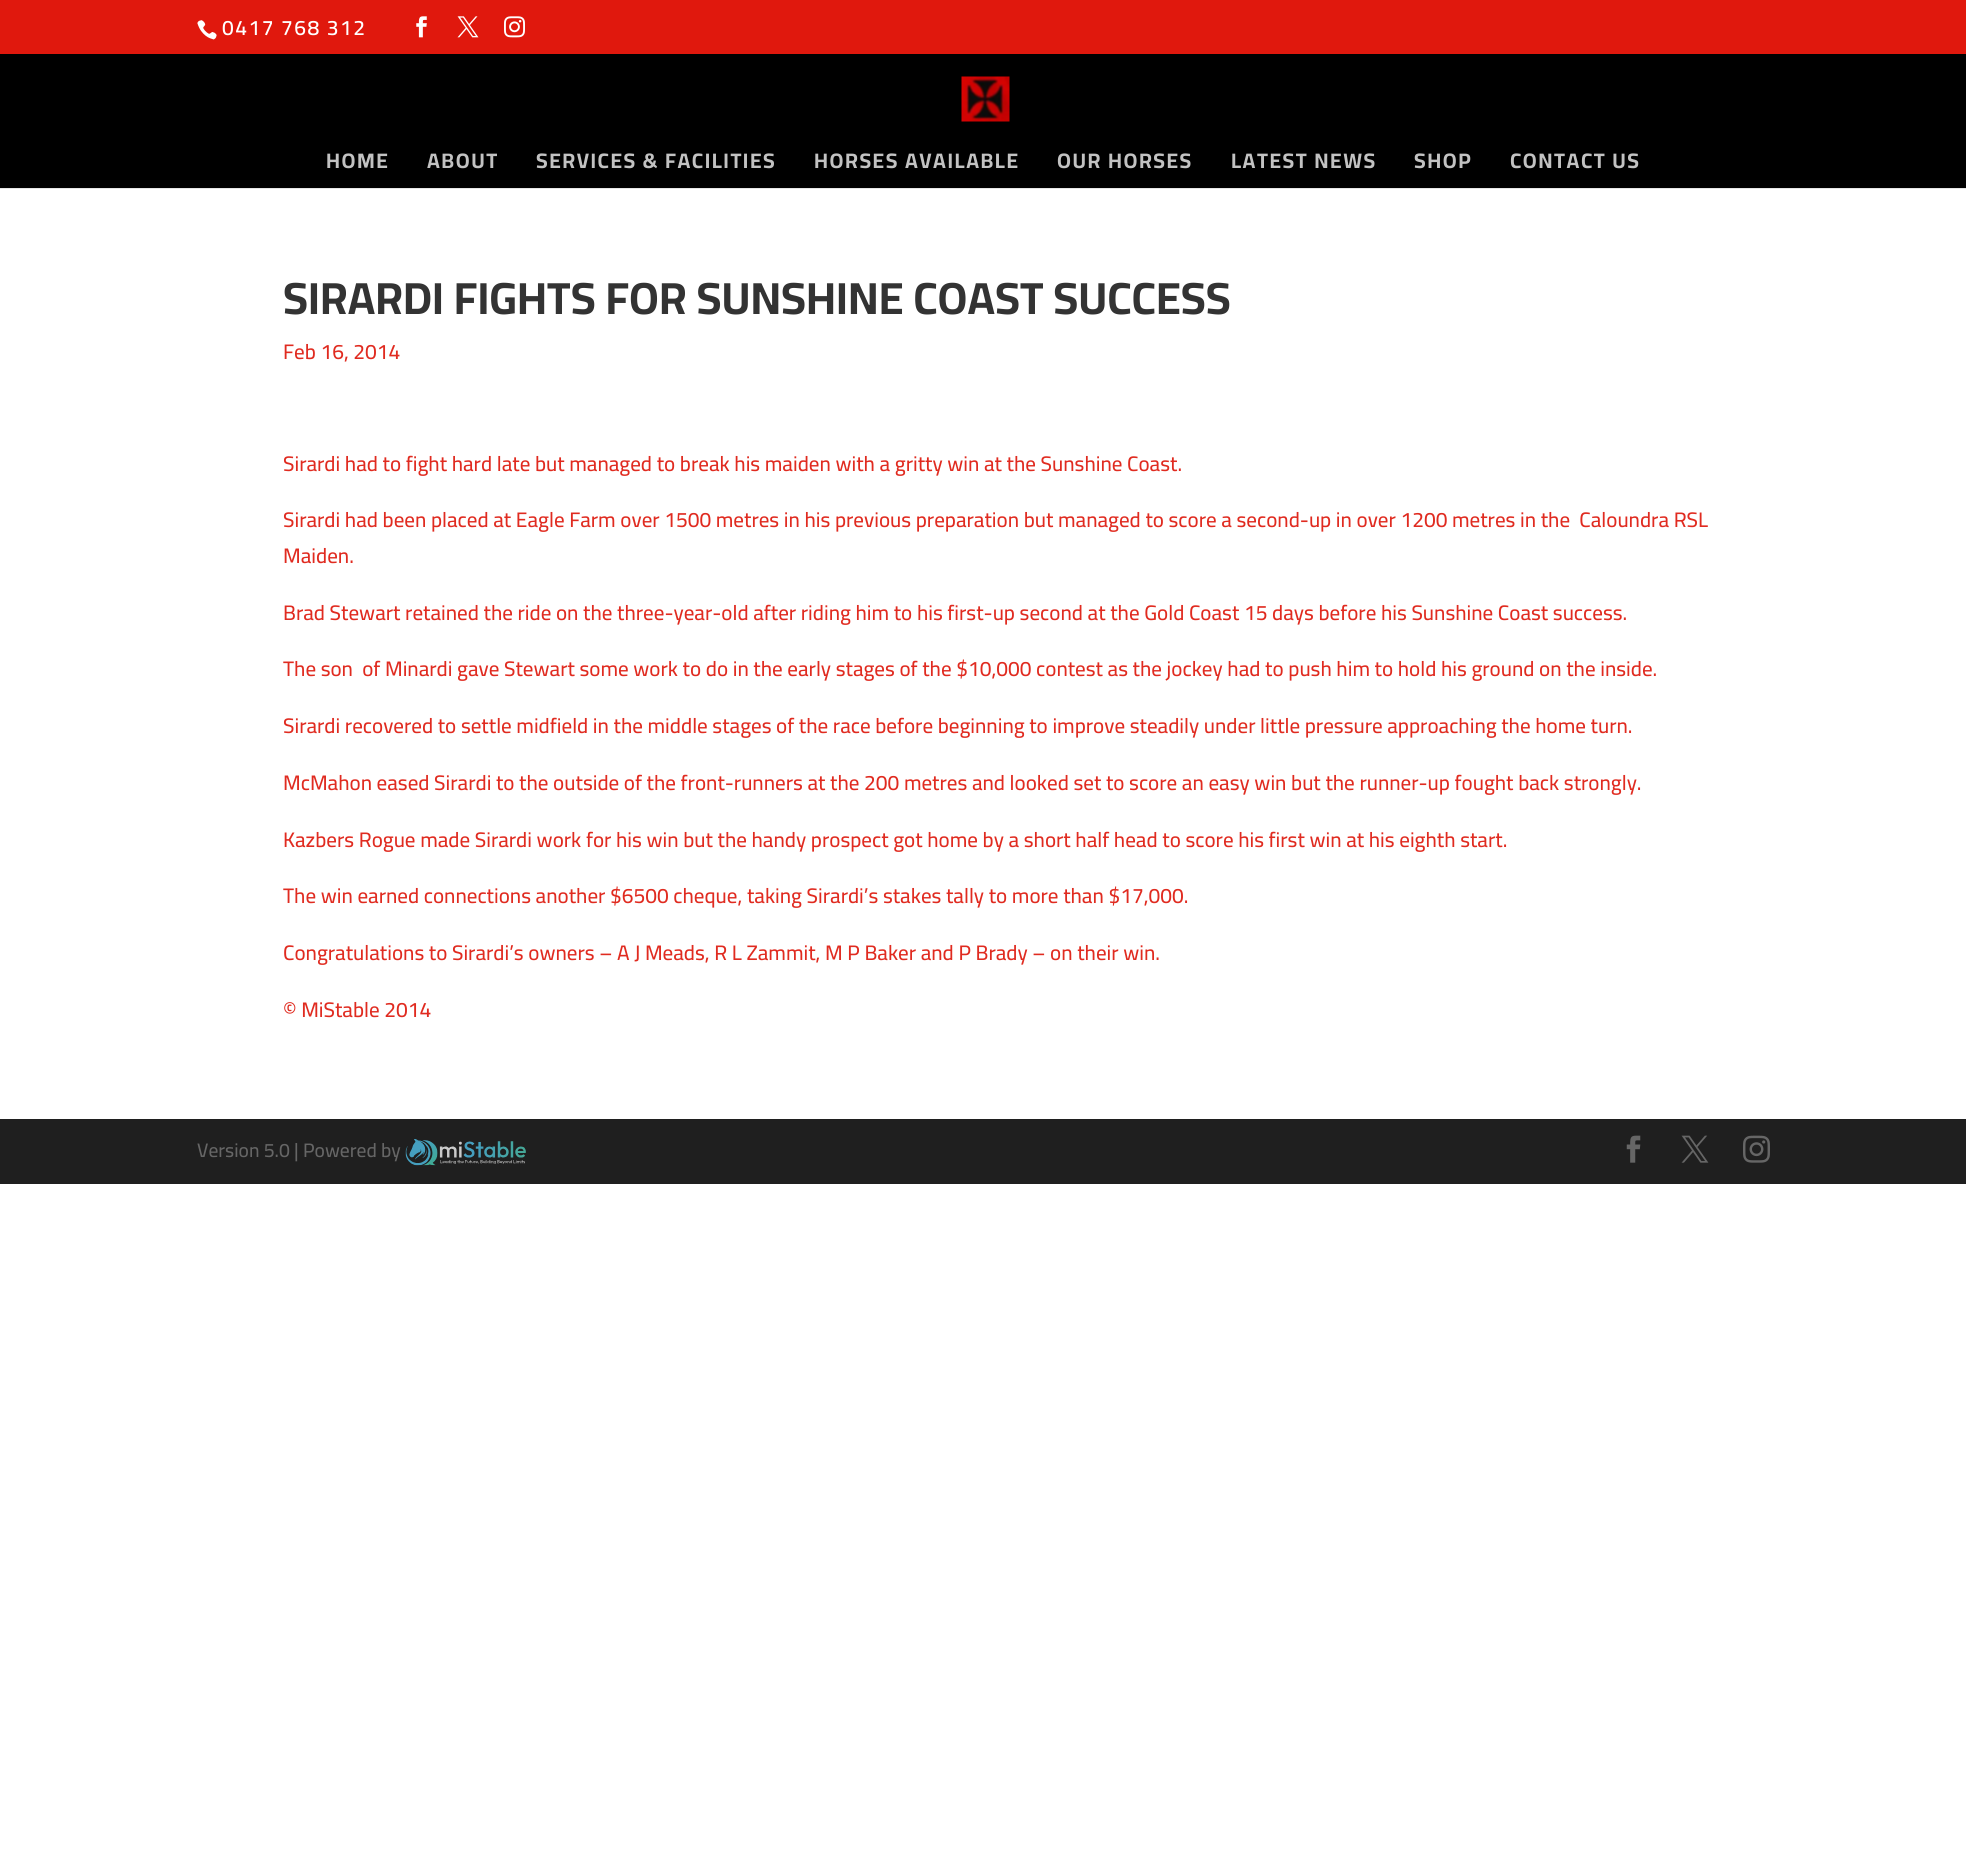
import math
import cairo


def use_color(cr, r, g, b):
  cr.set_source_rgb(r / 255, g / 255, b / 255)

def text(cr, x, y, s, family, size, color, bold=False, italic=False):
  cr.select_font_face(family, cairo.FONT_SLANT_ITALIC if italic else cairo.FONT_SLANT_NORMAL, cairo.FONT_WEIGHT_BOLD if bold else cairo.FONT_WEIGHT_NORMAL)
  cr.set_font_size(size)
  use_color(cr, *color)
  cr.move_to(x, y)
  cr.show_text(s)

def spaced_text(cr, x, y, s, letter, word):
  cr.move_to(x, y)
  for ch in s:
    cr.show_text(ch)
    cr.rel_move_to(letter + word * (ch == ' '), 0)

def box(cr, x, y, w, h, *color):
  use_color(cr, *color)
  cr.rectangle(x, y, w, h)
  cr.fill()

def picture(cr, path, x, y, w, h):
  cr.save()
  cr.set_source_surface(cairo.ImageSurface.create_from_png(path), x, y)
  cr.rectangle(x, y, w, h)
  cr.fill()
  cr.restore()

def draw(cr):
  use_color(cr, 255, 255, 255)
  cr.paint()
  box(cr, 0, 0, 1966, 54, 224, 24, 13)
  picture(cr, "img_01.png", 197, 20, 20, 20)
  picture(cr, "img_02.png", 416, 16, 11, 22)
  picture(cr, "img_03.png", 457, 16, 22, 22)
  picture(cr, "img_04.png", 504, 16, 21, 22)
  use_color(cr, 230, 230, 230)
  cr.new_path()
  cr.move_to(0, 188)
  cr.line_to(0, 189)
  cr.line_to(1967, 189)
  cr.line_to(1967, 56)
  cr.line_to(1966, 56)
  cr.line_to(1966, 188)
  cr.close_path()
  cr.fill()
  box(cr, 0, 54, 1966, 134, 0, 0, 0)
  picture(cr, "img_05.png", 961, 76, 49, 46)
  box(cr, 0, 1119, 1966, 65, 31, 31, 31)
  picture(cr, "img_06.png", 405, 1139, 121, 27)
  picture(cr, "img_07.png", 1626, 1135, 15, 28)
  picture(cr, "img_08.png", 1681, 1135, 28, 28)
  picture(cr, "img_09.png", 1743, 1135, 27, 28)
  cr.select_font_face("Cairo SemiBold")
  cr.set_font_size(21)
  use_color(cr, 255, 255, 255)
  spaced_text(cr, 222, 35, "0417 768 312", 1.5, 0)
  cr.select_font_face("Cairo", cairo.FONT_SLANT_NORMAL, cairo.FONT_WEIGHT_BOLD)
  use_color(cr, 194, 194, 194)
  spaced_text(cr, 326, 168, "HOME", 1.5, 0)
  spaced_text(cr, 427, 168, "ABOUT", 1.5, 0)
  spaced_text(cr, 536, 168, "SERVICES & FACILITIES", 1.5, 0)
  spaced_text(cr, 814, 168, "HORSES AVAILABLE", 1.5, 0)
  spaced_text(cr, 1057, 168, "OUR HORSES", 1.5, 0)
  spaced_text(cr, 1231, 168, "LATEST NEWS", 1.5, 0)
  spaced_text(cr, 1414, 168, "SHOP", 1.5, 0)
  spaced_text(cr, 1510, 168, "CONTACT US", 1.5, 0)
  text(cr, 283, 314, "SIRARDI FIGHTS FOR SUNSHINE COAST SUCCESS", "Cairo", 45, (51, 51, 51), bold=True)
  text(cr, 283, 359, "Feb 16, 2014", "Cairo Medium", 21, (224, 43, 32))
  text(cr, 283, 471, "Sirardi had to fight hard late but managed to break his maiden with a gritty win at the Sunshine Coast.", "Cairo Medium", 21, (224, 43, 32))
  text(cr, 283, 527, "Sirardi had been placed at Eagle Farm over 1500 metres in his previous preparation but managed to score a second-up in over 1200 metres in the  Caloundra RSL", "Cairo Medium", 21, (224, 43, 32))
  text(cr, 283, 563, "Maiden.", "Cairo Medium", 21, (224, 43, 32))
  text(cr, 283, 620, "Brad Stewart retained the ride on the three-year-old after riding him to his first-up second at the Gold Coast 15 days before his Sunshine Coast success.", "Cairo Medium", 21, (224, 43, 32))
  text(cr, 283, 676, "The son  of Minardi gave Stewart some work to do in the early stages of the $10,000 contest as the jockey had to push him to hold his ground on the inside.", "Cairo Medium", 21, (224, 43, 32))
  text(cr, 283, 733, "Sirardi recovered to settle midfield in the middle stages of the race before beginning to improve steadily under little pressure approaching the home turn.", "Cairo Medium", 21, (224, 43, 32))
  text(cr, 283, 790, "McMahon eased Sirardi to the outside of the front-runners at the 200 metres and looked set to score an easy win but the runner-up fought back strongly.", "Cairo Medium", 21, (224, 43, 32))
  text(cr, 283, 847, "Kazbers Rogue made Sirardi work for his win but the handy prospect got home by a short half head to score his first win at his eighth start.", "Cairo Medium", 21, (224, 43, 32))
  text(cr, 283, 903, "The win earned connections another $6500 cheque, taking Sirardi’s stakes tally to more than $17,000.", "Cairo Medium", 21, (224, 43, 32))
  text(cr, 283, 960, "Congratulations to Sirardi’s owners – A J Meads, R L Zammit, M P Baker and P Brady – on their win.", "Cairo Medium", 21, (224, 43, 32))
  text(cr, 283, 1017, "© MiStable 2014", "Cairo Medium", 21, (224, 43, 32))
  text(cr, 197, 1157, "Version 5.0 | Powered by", "Cairo Medium", 19.5, (102, 102, 102))


surface = cairo.ImageSurface(cairo.FORMAT_RGB24, 1966, 1859)
cr = cairo.Context(surface)
options = cairo.FontOptions()
options.set_hint_metrics(cairo.HINT_METRICS_OFF)
options.set_hint_style(cairo.HINT_STYLE_NONE)
cr.set_font_options(options)
cr.set_miter_limit(4)
draw(cr)
surface.write_to_png("out.png")
